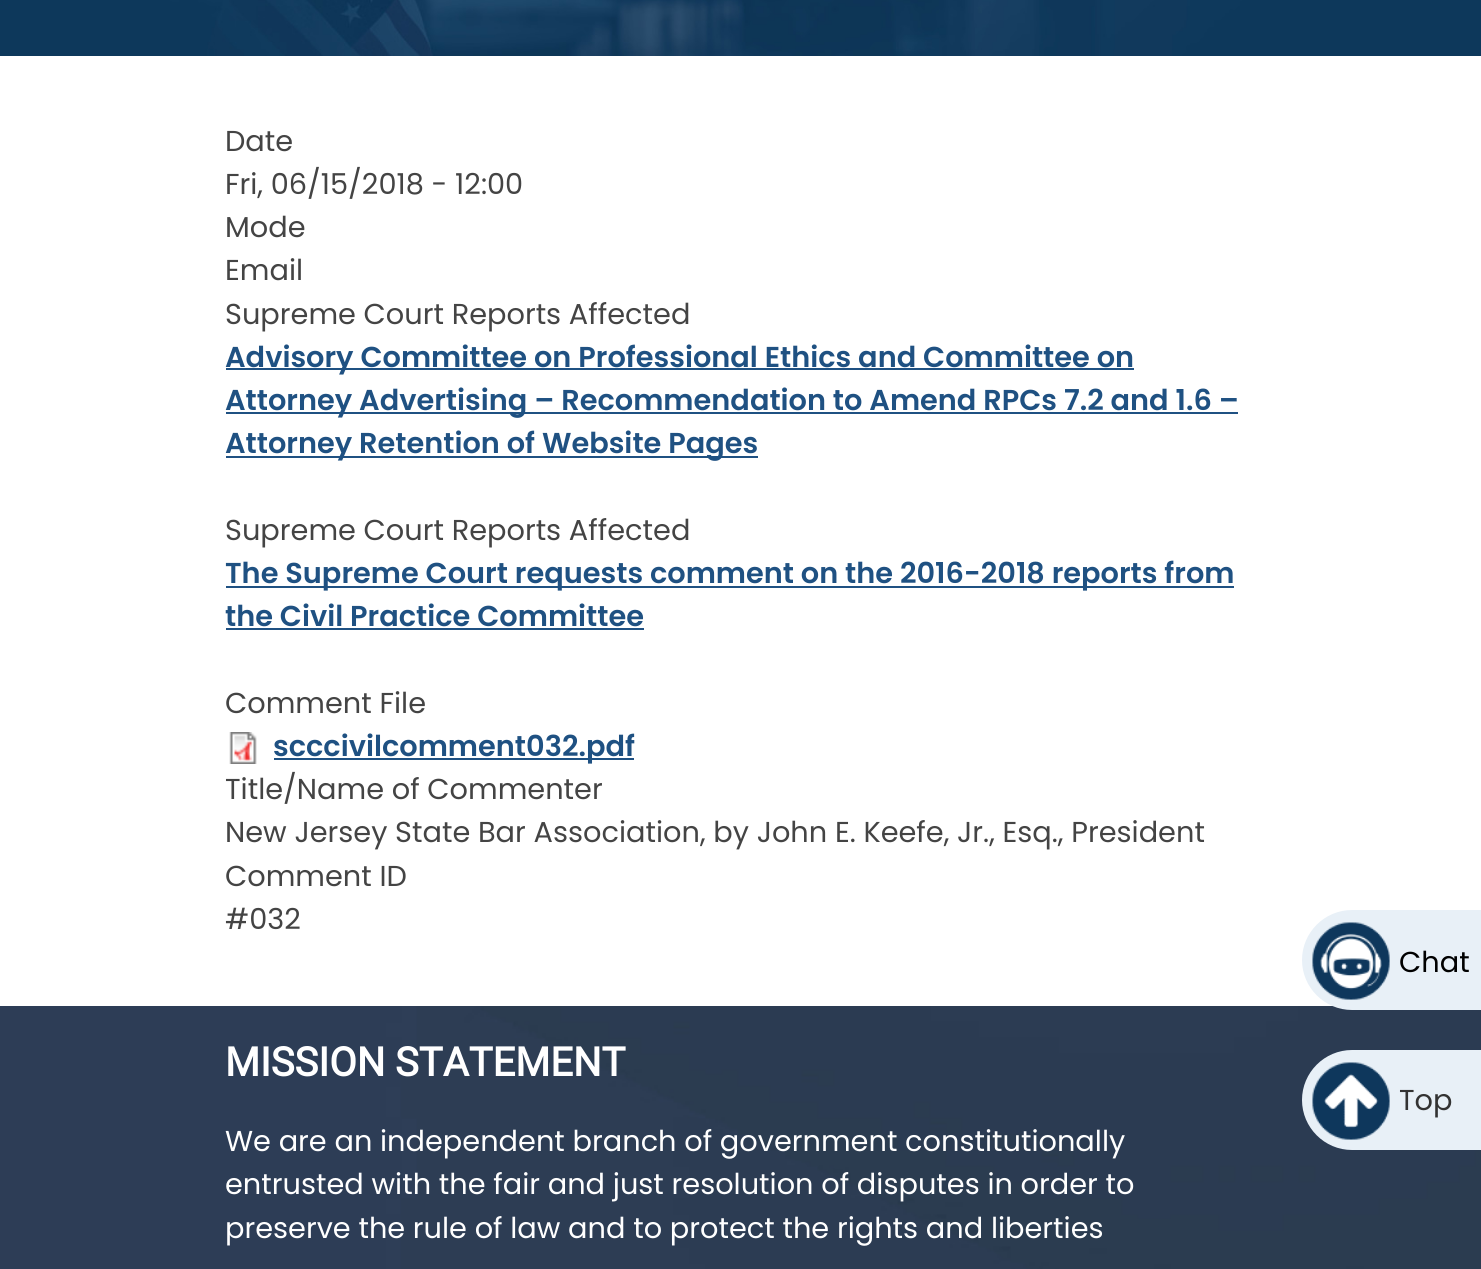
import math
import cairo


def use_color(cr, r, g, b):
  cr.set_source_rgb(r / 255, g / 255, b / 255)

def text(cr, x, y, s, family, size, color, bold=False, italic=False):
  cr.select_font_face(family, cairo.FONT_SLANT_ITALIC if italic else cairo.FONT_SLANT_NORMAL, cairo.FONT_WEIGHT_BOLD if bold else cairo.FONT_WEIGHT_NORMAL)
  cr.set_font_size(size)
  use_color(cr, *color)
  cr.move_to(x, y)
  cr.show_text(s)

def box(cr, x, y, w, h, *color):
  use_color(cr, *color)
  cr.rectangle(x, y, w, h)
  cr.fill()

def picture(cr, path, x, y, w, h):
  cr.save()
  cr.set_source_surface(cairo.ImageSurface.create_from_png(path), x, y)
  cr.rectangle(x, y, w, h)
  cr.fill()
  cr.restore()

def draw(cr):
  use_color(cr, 255, 255, 255)
  cr.paint()
  picture(cr, "img_01.png", 0, 0, 1481, 56)
  box(cr, 226, 368, 908, 2, 31, 81, 130)
  box(cr, 226, 412, 1012, 2, 31, 81, 130)
  box(cr, 226, 456, 532, 2, 31, 81, 130)
  box(cr, 226, 586, 1008, 2, 31, 81, 130)
  box(cr, 226, 628, 418, 2, 31, 81, 130)
  picture(cr, "img_02.png", 229, 732, 28, 32)
  box(cr, 274, 758, 360, 2, 31, 81, 130)
  picture(cr, "img_03.png", 0, 1006, 1481, 263)
  use_color(cr, 232, 240, 247)
  cr.new_path()
  cr.move_to(1352, 910)
  cr.line_to(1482, 910)
  cr.line_to(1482, 1010)
  cr.line_to(1352, 1010)
  cr.curve_to(1324.5, 1010, 1302, 987.5, 1302, 960)
  cr.curve_to(1302, 932.5, 1324.5, 910, 1352, 910)
  cr.close_path()
  cr.fill()
  picture(cr, "img_04.png", 1312, 922, 78, 78)
  cr.new_path()
  cr.move_to(1352, 1050)
  cr.line_to(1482, 1050)
  cr.line_to(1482, 1150)
  cr.line_to(1352, 1150)
  cr.curve_to(1324.5, 1150, 1302, 1127.5, 1302, 1100)
  cr.curve_to(1302, 1072.5, 1324.5, 1050, 1352, 1050)
  cr.close_path()
  cr.fill()
  picture(cr, "img_05.png", 1312, 1062, 78, 78)
  text(cr, 225, 151, "Date", "Poppins", 28.8, (68, 68, 68))
  text(cr, 225, 194, "Fri, 06/15/2018 - 12:00", "Poppins", 28.8, (68, 68, 68))
  text(cr, 225, 237, "Mode", "Poppins", 28.8, (68, 68, 68))
  text(cr, 225, 280, "Email", "Poppins", 28.8, (68, 68, 68))
  text(cr, 225, 324, "Supreme Court Reports Affected", "Poppins", 28.8, (68, 68, 68))
  text(cr, 225, 367, "Advisory Committee on Professional Ethics and Committee on", "Poppins SemiBold", 28.8, (31, 81, 130))
  text(cr, 225, 410, "Attorney Advertising – Recommendation to Amend RPCs 7.2 and 1.6 –", "Poppins SemiBold", 28.8, (31, 81, 130))
  text(cr, 225, 453, "Attorney Retention of Website Pages", "Poppins SemiBold", 28.8, (31, 81, 130))
  text(cr, 225, 540, "Supreme Court Reports Affected", "Poppins", 28.8, (68, 68, 68))
  text(cr, 225, 583, "The Supreme Court requests comment on the 2016-2018 reports from", "Poppins SemiBold", 28.8, (31, 81, 130))
  text(cr, 225, 626, "the Civil Practice Committee", "Poppins SemiBold", 28.8, (31, 81, 130))
  text(cr, 225, 713, "Comment File", "Poppins", 28.8, (68, 68, 68))
  text(cr, 273, 756, "scccivilcomment032.pdf", "Poppins SemiBold", 28.8, (31, 81, 130))
  text(cr, 225, 799, "Title/Name of Commenter", "Poppins", 28.8, (68, 68, 68))
  text(cr, 225, 842, "New Jersey State Bar Association, by John E. Keefe, Jr., Esq., President", "Poppins", 28.8, (68, 68, 68))
  text(cr, 225, 886, "Comment ID", "Poppins", 28.8, (68, 68, 68))
  text(cr, 225, 929, "#032", "Poppins", 28.8, (68, 68, 68))
  text(cr, 225, 1076, "MISSION STATEMENT", "Roboto", 40, (255, 255, 255), bold=True)
  text(cr, 225, 1151, "We are an independent branch of government constitutionally", "Poppins", 28.8, (255, 255, 255))
  text(cr, 225, 1194, "entrusted with the fair and just resolution of disputes in order to", "Poppins", 28.8, (255, 255, 255))
  text(cr, 225, 1238, "preserve the rule of law and to protect the rights and liberties", "Poppins", 28.8, (255, 255, 255))
  text(cr, 1399, 972, "Chat", "Poppins", 28.8, (0, 0, 0))
  text(cr, 1399, 1110, "Top", "Poppins", 28.8, (51, 51, 51))


surface = cairo.ImageSurface(cairo.FORMAT_RGB24, 1481, 1269)
cr = cairo.Context(surface)
options = cairo.FontOptions()
options.set_hint_metrics(cairo.HINT_METRICS_OFF)
options.set_hint_style(cairo.HINT_STYLE_NONE)
cr.set_font_options(options)
cr.set_miter_limit(4)
draw(cr)
surface.write_to_png("out.png")
